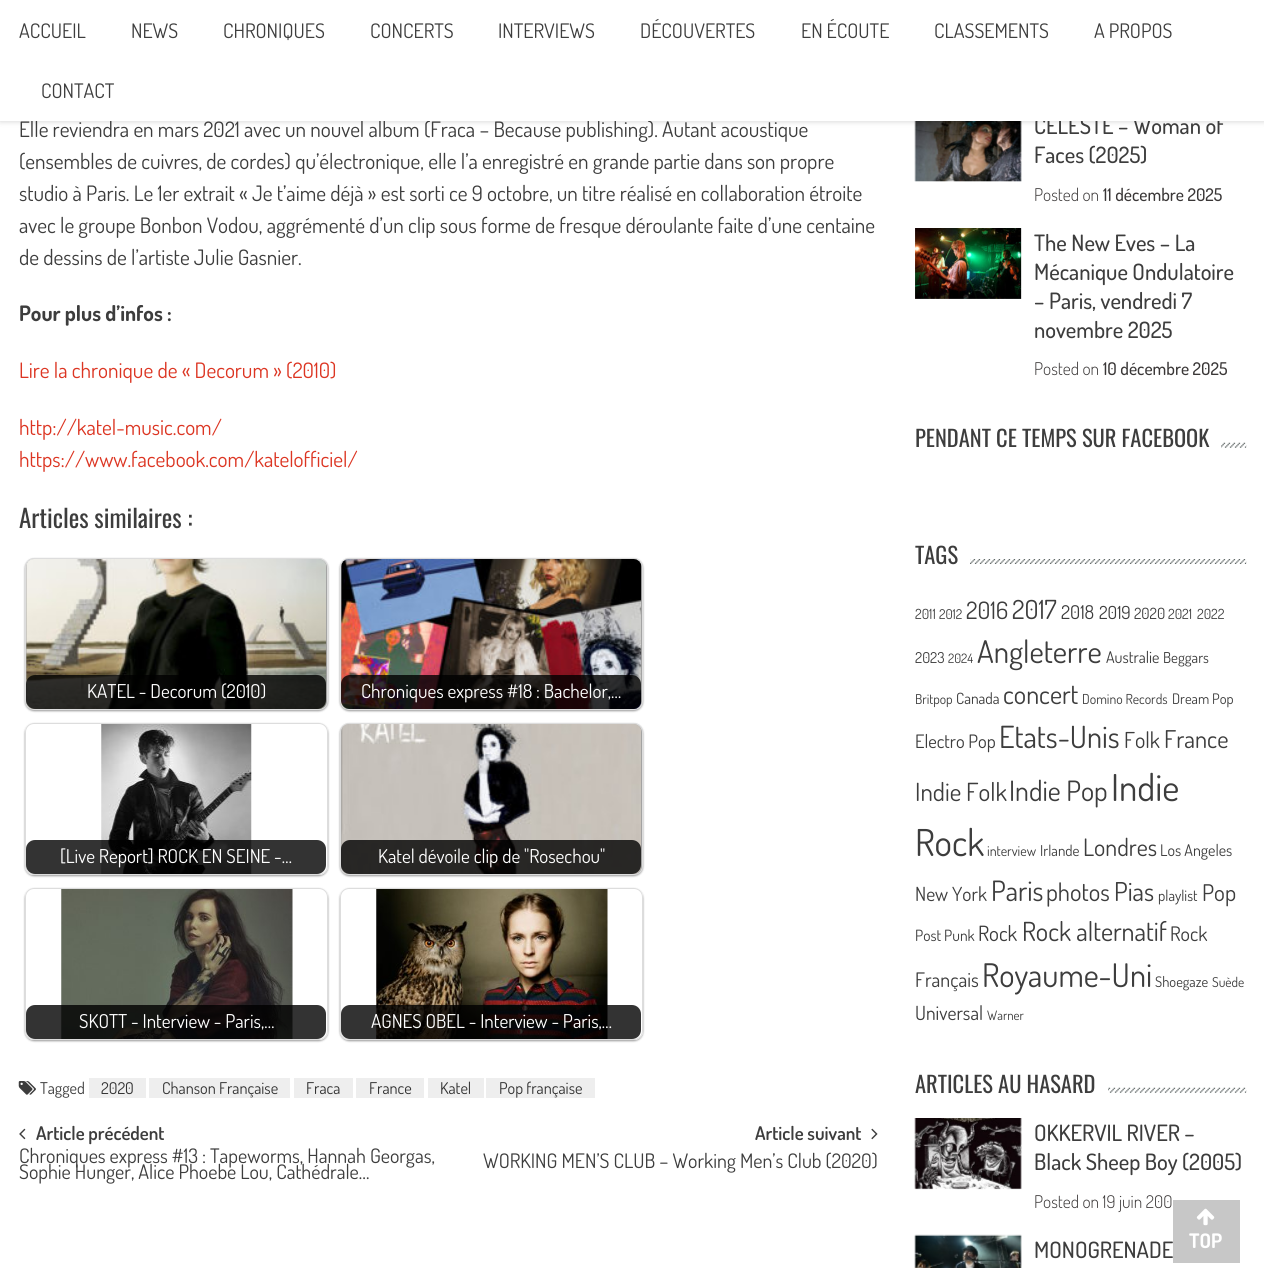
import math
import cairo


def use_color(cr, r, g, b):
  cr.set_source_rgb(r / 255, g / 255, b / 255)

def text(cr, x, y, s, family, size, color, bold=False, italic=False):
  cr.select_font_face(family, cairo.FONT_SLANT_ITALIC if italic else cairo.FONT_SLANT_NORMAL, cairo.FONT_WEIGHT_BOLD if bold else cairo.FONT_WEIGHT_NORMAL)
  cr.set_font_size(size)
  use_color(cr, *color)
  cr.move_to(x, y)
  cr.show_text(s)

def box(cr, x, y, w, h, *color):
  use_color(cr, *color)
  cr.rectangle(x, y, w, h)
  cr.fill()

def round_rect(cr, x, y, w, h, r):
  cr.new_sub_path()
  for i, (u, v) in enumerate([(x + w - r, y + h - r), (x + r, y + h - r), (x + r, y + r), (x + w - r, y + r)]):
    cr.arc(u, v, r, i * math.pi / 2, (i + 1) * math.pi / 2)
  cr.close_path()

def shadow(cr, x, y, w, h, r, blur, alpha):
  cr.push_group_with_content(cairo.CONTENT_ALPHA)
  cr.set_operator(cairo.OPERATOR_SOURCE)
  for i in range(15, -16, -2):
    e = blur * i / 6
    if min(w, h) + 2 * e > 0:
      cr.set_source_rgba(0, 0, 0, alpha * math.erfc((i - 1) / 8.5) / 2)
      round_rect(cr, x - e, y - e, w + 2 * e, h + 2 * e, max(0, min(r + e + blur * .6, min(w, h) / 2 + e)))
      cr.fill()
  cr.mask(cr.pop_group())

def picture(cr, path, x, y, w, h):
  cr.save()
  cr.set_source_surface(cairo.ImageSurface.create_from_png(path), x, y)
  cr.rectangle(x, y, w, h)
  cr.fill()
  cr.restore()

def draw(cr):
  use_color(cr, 255, 255, 255)
  cr.paint()
  picture(cr, "img_10.png", 914, 121, 108, 61)
  use_color(cr, 0, 0, 0)
  shadow(cr, 0, 0, 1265, 121, 0, 3, 0.2)
  shadow(cr, 25, 559, 303, 152, 9, 1, 0.4)
  round_rect(cr, 25.5, 558.5, 302, 151, 8.5)
  use_color(cr, 221, 221, 221)
  cr.set_line_width(1)
  cr.stroke()
  picture(cr, "img_01.png", 26, 559, 301, 150)
  cr.save()
  round_rect(cr, 26, 559, 300, 150, 8)
  cr.clip()
  cr.set_source_rgba(0, 0, 0, 0.8)
  round_rect(cr, 26, 675, 300, 34, 9)
  cr.fill()
  cr.restore()
  use_color(cr, 0, 0, 0)
  shadow(cr, 340, 559, 303, 152, 9, 1, 0.4)
  round_rect(cr, 340.5, 558.5, 302, 151, 8.5)
  use_color(cr, 221, 221, 221)
  cr.stroke()
  picture(cr, "img_02.png", 341, 559, 301, 150)
  cr.save()
  round_rect(cr, 341, 559, 300, 150, 8)
  cr.clip()
  cr.set_source_rgba(0, 0, 0, 0.8)
  round_rect(cr, 341, 675, 300, 34, 9)
  cr.fill()
  cr.restore()
  cr.save()
  cr.set_fill_rule(cairo.FILL_RULE_EVEN_ODD)
  cr.new_path()
  cr.move_to(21, 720)
  cr.line_to(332, 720)
  cr.line_to(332, 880)
  cr.line_to(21, 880)
  cr.close_path()
  cr.move_to(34, 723)
  cr.line_to(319, 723)
  cr.curve_to(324, 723, 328, 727, 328, 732)
  cr.line_to(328, 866)
  cr.curve_to(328, 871, 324, 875, 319, 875)
  cr.line_to(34, 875)
  cr.curve_to(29, 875, 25, 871, 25, 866)
  cr.line_to(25, 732)
  cr.curve_to(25, 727, 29, 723, 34, 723)
  cr.close_path()
  cr.clip()
  use_color(cr, 0, 0, 0)
  shadow(cr, 25, 724, 303, 152, 9, 1, 0.4)
  cr.restore()
  round_rect(cr, 25.5, 723.5, 302, 151, 8.5)
  cr.stroke()
  picture(cr, "img_03.png", 101, 724, 151, 150)
  cr.save()
  round_rect(cr, 26, 724, 300, 150, 8)
  cr.clip()
  cr.set_source_rgba(0, 0, 0, 0.8)
  round_rect(cr, 26, 840, 300, 34, 9)
  cr.fill()
  cr.restore()
  use_color(cr, 0, 0, 0)
  shadow(cr, 340, 724, 303, 152, 9, 1, 0.4)
  round_rect(cr, 340.5, 723.5, 302, 151, 8.5)
  use_color(cr, 221, 221, 221)
  cr.stroke()
  picture(cr, "img_04.png", 341, 724, 301, 150)
  cr.save()
  round_rect(cr, 341, 724, 300, 150, 8)
  cr.clip()
  cr.set_source_rgba(0, 0, 0, 0.8)
  round_rect(cr, 341, 840, 300, 34, 9)
  cr.fill()
  cr.restore()
  cr.save()
  cr.set_fill_rule(cairo.FILL_RULE_EVEN_ODD)
  cr.new_path()
  cr.move_to(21, 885)
  cr.line_to(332, 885)
  cr.line_to(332, 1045)
  cr.line_to(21, 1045)
  cr.close_path()
  cr.move_to(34, 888)
  cr.line_to(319, 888)
  cr.curve_to(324, 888, 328, 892, 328, 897)
  cr.line_to(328, 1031)
  cr.curve_to(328, 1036, 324, 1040, 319, 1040)
  cr.line_to(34, 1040)
  cr.curve_to(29, 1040, 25, 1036, 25, 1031)
  cr.line_to(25, 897)
  cr.curve_to(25, 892, 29, 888, 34, 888)
  cr.close_path()
  cr.clip()
  use_color(cr, 0, 0, 0)
  shadow(cr, 25, 889, 303, 152, 9, 1, 0.4)
  cr.restore()
  round_rect(cr, 25.5, 888.5, 302, 151, 8.5)
  cr.stroke()
  picture(cr, "img_05.png", 61, 889, 232, 150)
  cr.save()
  round_rect(cr, 26, 889, 300, 150, 8)
  cr.clip()
  cr.set_source_rgba(0, 0, 0, 0.8)
  round_rect(cr, 26, 1005, 300, 34, 9)
  cr.fill()
  cr.restore()
  cr.save()
  cr.set_fill_rule(cairo.FILL_RULE_EVEN_ODD)
  cr.new_path()
  cr.move_to(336, 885)
  cr.line_to(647, 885)
  cr.line_to(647, 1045)
  cr.line_to(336, 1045)
  cr.close_path()
  cr.move_to(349, 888)
  cr.line_to(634, 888)
  cr.curve_to(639, 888, 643, 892, 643, 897)
  cr.line_to(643, 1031)
  cr.curve_to(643, 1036, 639, 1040, 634, 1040)
  cr.line_to(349, 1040)
  cr.curve_to(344, 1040, 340, 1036, 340, 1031)
  cr.line_to(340, 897)
  cr.curve_to(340, 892, 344, 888, 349, 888)
  cr.close_path()
  cr.clip()
  use_color(cr, 0, 0, 0)
  shadow(cr, 340, 889, 303, 152, 9, 1, 0.4)
  cr.restore()
  round_rect(cr, 340.5, 888.5, 302, 151, 8.5)
  cr.stroke()
  picture(cr, "img_06.png", 376, 889, 232, 150)
  cr.save()
  round_rect(cr, 341, 889, 300, 150, 8)
  cr.clip()
  cr.set_source_rgba(0, 0, 0, 0.8)
  round_rect(cr, 341, 1005, 300, 34, 9)
  cr.fill()
  cr.restore()
  picture(cr, "img_07.png", 18, 1081, 18, 14)
  box(cr, 89, 1078, 57, 20, 238, 238, 238)
  box(cr, 149, 1078, 141, 20, 238, 238, 238)
  box(cr, 294, 1078, 59, 20, 238, 238, 238)
  box(cr, 356, 1078, 68, 20, 238, 238, 238)
  box(cr, 428, 1078, 56, 20, 238, 238, 238)
  box(cr, 486, 1078, 109, 20, 238, 238, 238)
  picture(cr, "img_08.png", 19, 1128, 7, 12)
  picture(cr, "img_09.png", 871, 1128, 7, 12)
  picture(cr, "img_11.png", 915, 228, 107, 71)
  picture(cr, "img_12.png", 1221, 442, 26, 6)
  picture(cr, "img_13.png", 970, 559, 277, 5)
  picture(cr, "img_14.png", 1108, 1087, 139, 6)
  picture(cr, "img_15.png", 914, 1118, 108, 72)
  picture(cr, "img_16.png", 914, 1234, 108, 34)
  box(cr, 1173, 1200, 67, 63, 199, 199, 199)
  picture(cr, "img_17.png", 1196, 1208, 19, 18)
  text(cr, 19, 137, "Elle reviendra en mars 2021 avec un nouvel album (Fraca – Because publishing). Autant acoustique", "Dosis", 21.25, (61, 61, 61))
  text(cr, 19, 169, "(ensembles de cuivres, de cordes) qu’électronique, elle l’a enregistré en grande partie dans son propre", "Dosis", 21.25, (61, 61, 61))
  text(cr, 19, 201, "studio à Paris. Le 1er extrait « Je t’aime déjà » est sorti ce 9 octobre, un titre réalisé en collaboration étroite", "Dosis", 21.25, (61, 61, 61))
  text(cr, 19, 233, "avec le groupe Bonbon Vodou, aggrémenté d’un clip sous forme de fresque déroulante faite d’une centaine", "Dosis", 21.25, (61, 61, 61))
  text(cr, 19, 265, "de dessins de l’artiste Julie Gasnier.", "Dosis", 21.25, (61, 61, 61))
  text(cr, 19, 321, "Pour plus d’infos :", "Dosis", 21.25, (61, 61, 61), bold=True)
  text(cr, 19, 378, "Lire la chronique de « Decorum » (2010)", "Dosis", 21.25, (220, 53, 34))
  text(cr, 19, 435, "http://katel-music.com/", "Dosis", 21.25, (220, 53, 34))
  text(cr, 19, 467, "https://www.facebook.com/katelofficiel/", "Dosis", 21.25, (220, 53, 34))
  text(cr, 19, 528, "Articles similaires :", "Oswald", 25, (61, 61, 61))
  text(cr, 87, 698, "KATEL - Decorum (2010)", "Dosis", 19.1, (255, 255, 255))
  text(cr, 361, 698, "Chroniques express #18 : Bachelor,…", "Dosis", 19.1, (255, 255, 255))
  text(cr, 60, 863, "[Live Report] ROCK EN SEINE -…", "Dosis", 19.1, (255, 255, 255))
  text(cr, 378, 863, "Katel dévoile clip de \"Rosechou\"", "Dosis", 19.1, (255, 255, 255))
  text(cr, 79, 1028, "SKOTT - Interview - Paris,…", "Dosis", 19.1, (255, 255, 255))
  text(cr, 371, 1028, "AGNES OBEL - Interview - Paris,…", "Dosis", 19.1, (255, 255, 255))
  text(cr, 40, 1094, "Tagged", "Dosis", 16.25, (61, 61, 61))
  text(cr, 101, 1094, "2020", "Dosis", 16.25, (51, 51, 51))
  text(cr, 162, 1094, "Chanson Française", "Dosis", 16.25, (51, 51, 51))
  text(cr, 306, 1094, "Fraca", "Dosis", 16.25, (51, 51, 51))
  text(cr, 369, 1094, "France", "Dosis", 16.25, (51, 51, 51))
  text(cr, 440, 1094, "Katel", "Dosis", 16.25, (51, 51, 51))
  text(cr, 499, 1094, "Pop française", "Dosis", 16.25, (51, 51, 51))
  text(cr, 36, 1140, "Article précédent", "Dosis SemiBold", 18.75, (61, 61, 61))
  text(cr, 19, 1163, "Chroniques express #13 : Tapeworms, Hannah Georgas,", "Dosis", 20, (61, 61, 61))
  text(cr, 19, 1179, "Sophie Hunger, Alice Phoebe Lou, Cathédrale…", "Dosis", 20, (61, 61, 61))
  text(cr, 755, 1140, "Article suivant", "Dosis SemiBold", 18.75, (61, 61, 61))
  text(cr, 483, 1168, "WORKING MEN’S CLUB – Working Men’s Club (2020)", "Dosis", 20, (61, 61, 61))
  text(cr, 1034, 134, "CELESTE – Woman of", "Dosis Medium", 22.5, (61, 61, 61))
  box(cr, 0, 0, 1264, 121, 255, 255, 255)
  text(cr, 41, 98, "CONTACT", "Dosis", 20, (61, 61, 61))
  text(cr, 1094, 38, "A PROPOS", "Dosis", 20, (61, 61, 61))
  text(cr, 934, 38, "CLASSEMENTS", "Dosis", 20, (61, 61, 61))
  text(cr, 801, 38, "EN ÉCOUTE", "Dosis", 20, (61, 61, 61))
  text(cr, 640, 38, "DÉCOUVERTES", "Dosis", 20, (61, 61, 61))
  text(cr, 498, 38, "INTERVIEWS", "Dosis", 20, (61, 61, 61))
  text(cr, 370, 38, "CONCERTS", "Dosis", 20, (61, 61, 61))
  text(cr, 223, 38, "CHRONIQUES", "Dosis", 20, (61, 61, 61))
  text(cr, 131, 38, "NEWS", "Dosis", 20, (61, 61, 61))
  text(cr, 19, 38, "ACCUEIL", "Dosis", 20, (61, 61, 61))
  text(cr, 1034, 163, "Faces (2025)", "Dosis Medium", 22.5, (61, 61, 61))
  text(cr, 1034, 201, "Posted on", "Dosis Light", 17.5, (58, 55, 55))
  text(cr, 1103, 201, "11 décembre 2025", "Dosis Medium", 17.5, (58, 55, 55))
  text(cr, 1034, 251, "The New Eves – La", "Dosis Medium", 22.5, (61, 61, 61))
  text(cr, 1034, 280, "Mécanique Ondulatoire", "Dosis Medium", 22.5, (61, 61, 61))
  text(cr, 1034, 309, "– Paris, vendredi 7", "Dosis Medium", 22.5, (61, 61, 61))
  text(cr, 1034, 338, "novembre 2025", "Dosis Medium", 22.5, (61, 61, 61))
  text(cr, 1034, 375, "Posted on", "Dosis Light", 17.5, (58, 55, 55))
  text(cr, 1103, 375, "10 décembre 2025", "Dosis Medium", 17.5, (58, 55, 55))
  text(cr, 915, 447, "PENDANT CE TEMPS SUR FACEBOOK", "Oswald", 22.5, (61, 61, 61))
  text(cr, 915, 564, "TAGS", "Oswald", 22.5, (61, 61, 61))
  text(cr, 915, 619, "2011", "Dosis", 14, (61, 61, 61))
  text(cr, 939, 619, "2012", "Dosis", 13.5, (61, 61, 61))
  text(cr, 966, 619, "2016", "Dosis", 24, (61, 61, 61))
  text(cr, 1012, 619, "2017", "Dosis", 26.25, (61, 61, 61))
  text(cr, 1061, 619, "2018", "Dosis", 19, (61, 61, 61))
  text(cr, 1099, 619, "2019", "Dosis", 18, (61, 61, 61))
  text(cr, 1134, 619, "2020", "Dosis", 15.5, (61, 61, 61))
  text(cr, 1168, 619, "2021", "Dosis", 14, (61, 61, 61))
  text(cr, 1197, 619, "2022", "Dosis", 14, (61, 61, 61))
  text(cr, 915, 663, "2023", "Dosis", 15, (61, 61, 61))
  text(cr, 948, 663, "2024", "Dosis", 13, (61, 61, 61))
  text(cr, 977, 663, "Angleterre", "Dosis", 31, (61, 61, 61))
  text(cr, 1106, 663, "Australie", "Dosis", 16, (61, 61, 61))
  text(cr, 1163, 663, "Beggars", "Dosis", 15, (61, 61, 61))
  text(cr, 915, 704, "Britpop", "Dosis", 13.5, (61, 61, 61))
  text(cr, 956, 704, "Canada", "Dosis", 15.5, (61, 61, 61))
  text(cr, 1003, 704, "concert", "Dosis", 26.25, (61, 61, 61))
  text(cr, 1082, 704, "Domino Records", "Dosis", 13.75, (61, 61, 61))
  text(cr, 1172, 704, "Dream Pop", "Dosis", 14.5, (61, 61, 61))
  text(cr, 915, 748, "Electro Pop", "Dosis", 18.5, (61, 61, 61))
  text(cr, 999, 748, "Etats-Unis", "Dosis", 30.5, (61, 61, 61))
  text(cr, 1124, 748, "Folk", "Dosis", 22, (61, 61, 61))
  text(cr, 1164, 748, "France", "Dosis", 24.5, (61, 61, 61))
  text(cr, 915, 801, "Indie Folk", "Dosis", 25, (61, 61, 61))
  text(cr, 1009, 801, "Indie Pop", "Dosis", 28, (61, 61, 61))
  text(cr, 1111, 801, "Indie", "Dosis", 37, (61, 61, 61))
  text(cr, 915, 856, "Rock", "Dosis", 37, (61, 61, 61))
  text(cr, 987, 856, "interview", "Dosis", 14, (61, 61, 61))
  text(cr, 1040, 856, "Irlande", "Dosis", 15, (61, 61, 61))
  text(cr, 1083, 856, "Londres", "Dosis", 24, (61, 61, 61))
  text(cr, 1160, 856, "Los Angeles", "Dosis", 16, (61, 61, 61))
  text(cr, 915, 901, "New York", "Dosis", 19.5, (61, 61, 61))
  text(cr, 991, 901, "Paris", "Dosis", 28, (61, 61, 61))
  text(cr, 1046, 901, "photos", "Dosis", 24.5, (61, 61, 61))
  text(cr, 1114, 901, "Pias", "Dosis", 26, (61, 61, 61))
  text(cr, 1158, 901, "playlist", "Dosis", 15, (61, 61, 61))
  text(cr, 1202, 901, "Pop", "Dosis", 23, (61, 61, 61))
  text(cr, 915, 941, "Post Punk", "Dosis", 15.5, (61, 61, 61))
  text(cr, 978, 941, "Rock", "Dosis", 21, (61, 61, 61))
  text(cr, 1022, 941, "Rock alternatif", "Dosis", 26.25, (61, 61, 61))
  text(cr, 1170, 941, "Rock", "Dosis", 20, (61, 61, 61))
  text(cr, 915, 987, "Français", "Dosis", 20, (61, 61, 61))
  text(cr, 982, 987, "Royaume-Uni", "Dosis", 32.5, (61, 61, 61))
  text(cr, 1155, 987, "Shoegaze", "Dosis", 14.5, (61, 61, 61))
  text(cr, 1212, 987, "Suède", "Dosis", 13.5, (61, 61, 61))
  text(cr, 915, 1020, "Universal", "Dosis", 19.5, (61, 61, 61))
  text(cr, 987, 1020, "Warner", "Dosis", 13, (61, 61, 61))
  text(cr, 915, 1093, "ARTICLES AU HASARD", "Oswald", 22.5, (61, 61, 61))
  text(cr, 1034, 1141, "OKKERVIL RIVER –", "Dosis Medium", 22.5, (61, 61, 61))
  text(cr, 1034, 1170, "Black Sheep Boy (2005)", "Dosis Medium", 22.5, (61, 61, 61))
  text(cr, 1034, 1208, "Posted on 19 juin 200", "Dosis Light", 17.5, (58, 55, 55))
  text(cr, 1034, 1258, "MONOGRENADE", "Dosis Medium", 22.5, (61, 61, 61))
  text(cr, 1189, 1248, "TOP", "Dosis", 20, (255, 255, 255), bold=True)


surface = cairo.ImageSurface(cairo.FORMAT_RGB24, 1264, 1268)
cr = cairo.Context(surface)
options = cairo.FontOptions()
options.set_hint_metrics(cairo.HINT_METRICS_OFF)
options.set_hint_style(cairo.HINT_STYLE_NONE)
cr.set_font_options(options)
cr.set_miter_limit(4)
draw(cr)
surface.write_to_png("out.png")
